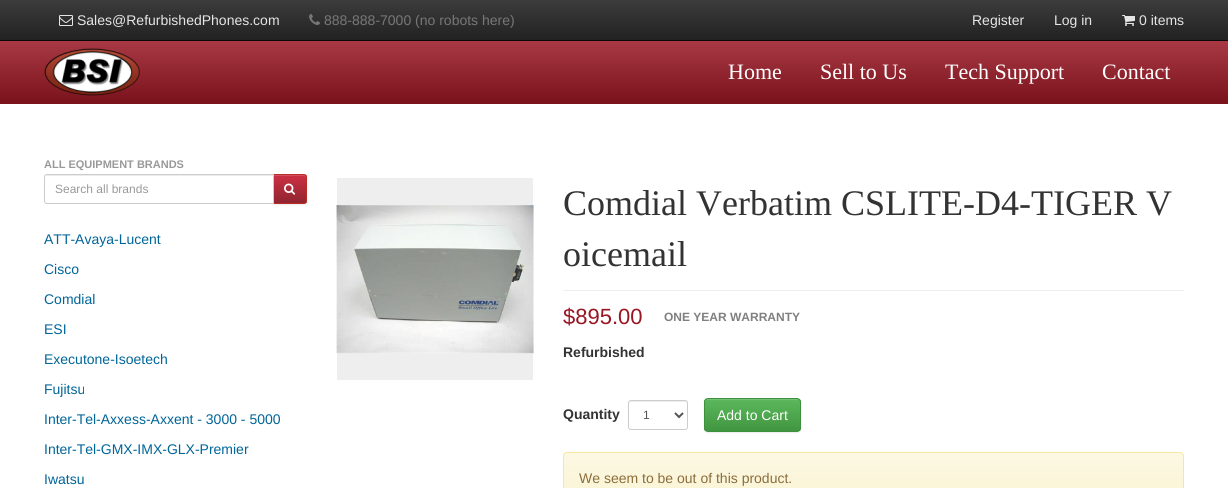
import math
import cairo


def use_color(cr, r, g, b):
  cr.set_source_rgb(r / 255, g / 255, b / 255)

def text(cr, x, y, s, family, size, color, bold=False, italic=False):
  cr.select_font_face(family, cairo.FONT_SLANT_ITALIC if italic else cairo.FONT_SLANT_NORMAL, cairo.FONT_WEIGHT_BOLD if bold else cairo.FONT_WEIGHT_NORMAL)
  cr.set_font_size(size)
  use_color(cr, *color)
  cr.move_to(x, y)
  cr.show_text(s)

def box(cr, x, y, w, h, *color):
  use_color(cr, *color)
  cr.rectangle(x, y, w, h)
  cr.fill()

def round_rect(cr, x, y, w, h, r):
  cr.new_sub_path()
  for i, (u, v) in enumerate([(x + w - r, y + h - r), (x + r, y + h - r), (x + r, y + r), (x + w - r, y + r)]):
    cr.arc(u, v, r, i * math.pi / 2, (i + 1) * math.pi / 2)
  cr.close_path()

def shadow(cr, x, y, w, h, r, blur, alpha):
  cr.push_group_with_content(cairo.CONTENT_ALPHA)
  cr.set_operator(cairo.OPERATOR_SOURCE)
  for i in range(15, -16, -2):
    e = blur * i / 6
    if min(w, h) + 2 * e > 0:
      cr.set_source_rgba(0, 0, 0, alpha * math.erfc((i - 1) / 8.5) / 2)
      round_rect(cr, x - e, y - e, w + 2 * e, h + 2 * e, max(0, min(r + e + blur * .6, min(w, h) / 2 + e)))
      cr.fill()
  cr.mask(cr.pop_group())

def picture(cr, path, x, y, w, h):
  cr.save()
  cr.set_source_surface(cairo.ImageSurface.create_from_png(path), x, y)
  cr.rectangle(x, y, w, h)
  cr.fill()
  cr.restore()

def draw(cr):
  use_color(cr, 255, 255, 255)
  cr.paint()
  gradient = cairo.LinearGradient(614, 0, 614, 40)
  gradient.add_color_stop_rgba(0, 0.235, 0.235, 0.235, 1)
  gradient.add_color_stop_rgba(1, 0.133, 0.133, 0.133, 1)
  cr.set_source(gradient)
  cr.rectangle(0, 0, 1228, 40)
  cr.fill()
  box(cr, 0, 40, 1228, 1, 8, 8, 8)
  picture(cr, "img_01.png", 59, 15, 14, 11)
  picture(cr, "img_02.png", 309, 14, 11, 11)
  picture(cr, "img_03.png", 1122, 15, 13, 11)
  gradient = cairo.LinearGradient(614, 41, 614, 103)
  gradient.add_color_stop_rgba(0, 0.659, 0.224, 0.267, 1)
  gradient.add_color_stop_rgba(1, 0.478, 0.071, 0.11, 1)
  cr.set_source(gradient)
  cr.rectangle(0, 41, 1228, 62)
  cr.fill()
  box(cr, 0, 103, 1228, 1, 124, 18, 29)
  picture(cr, "img_04.png", 44, 48, 96, 48)
  use_color(cr, 0, 0, 0)
  shadow(cr, 273, 175, 34, 30, 3, 0.5, 0.07)
  cr.save()
  cr.new_path()
  cr.move_to(273, 174)
  cr.line_to(304, 174)
  cr.curve_to(305.5, 174, 307, 175.5, 307, 177)
  cr.line_to(307, 201)
  cr.curve_to(307, 202.5, 305.5, 204, 304, 204)
  cr.line_to(273, 204)
  cr.close_path()
  cr.clip()
  gradient = cairo.LinearGradient(290, 175, 290, 203)
  gradient.add_color_stop_rgba(0, 0.8, 0.188, 0.263, 1)
  gradient.add_color_stop_rgba(1, 0.565, 0.145, 0.188, 1)
  cr.set_source(gradient)
  cr.rectangle(274, 175, 33, 28)
  cr.fill()
  cr.restore()
  use_color(cr, 211, 79, 95)
  cr.new_path()
  cr.move_to(274, 176)
  cr.line_to(304, 176)
  cr.curve_to(305, 176, 306, 177, 306, 178)
  cr.line_to(306, 177)
  cr.curve_to(306, 176, 305, 175, 304, 175)
  cr.line_to(274, 175)
  cr.close_path()
  cr.fill()
  cr.new_path()
  cr.move_to(273.5, 174.5)
  cr.line_to(304, 174.5)
  cr.curve_to(305.5, 174.5, 306.5, 175.5, 306.5, 177)
  cr.line_to(306.5, 201)
  cr.curve_to(306.5, 202.5, 305.5, 203.5, 304, 203.5)
  cr.line_to(273.5, 203.5)
  cr.close_path()
  use_color(cr, 185, 44, 40)
  cr.set_line_width(1)
  cr.stroke()
  use_color(cr, 255, 255, 255)
  cr.new_path()
  cr.move_to(47, 174)
  cr.line_to(274, 174)
  cr.line_to(274, 204)
  cr.line_to(47, 204)
  cr.curve_to(45.5, 204, 44, 202.5, 44, 201)
  cr.line_to(44, 177)
  cr.curve_to(44, 175.5, 45.5, 174, 47, 174)
  cr.close_path()
  cr.fill()
  use_color(cr, 236, 236, 236)
  cr.new_path()
  cr.move_to(47, 176)
  cr.line_to(273, 176)
  cr.line_to(273, 175)
  cr.line_to(47, 175)
  cr.line_to(46, 176)
  cr.line_to(45, 178)
  cr.curve_to(45, 177, 46, 176, 47, 176)
  cr.close_path()
  cr.fill()
  cr.new_path()
  cr.move_to(47, 174.5)
  cr.line_to(273.5, 174.5)
  cr.line_to(273.5, 203.5)
  cr.line_to(47, 203.5)
  cr.curve_to(45.5, 203.5, 44.5, 202.5, 44.5, 201)
  cr.line_to(44.5, 177)
  cr.curve_to(44.5, 175.5, 45.5, 174.5, 47, 174.5)
  cr.close_path()
  use_color(cr, 204, 204, 204)
  cr.stroke()
  picture(cr, "img_05.png", 284, 183, 12, 12)
  box(cr, 337, 178, 196, 202, 238, 238, 238)
  picture(cr, "img_06.png", 336, 205, 198, 149)
  box(cr, 563, 290, 621, 1, 238, 238, 238)
  use_color(cr, 236, 236, 236)
  cr.new_path()
  cr.move_to(631, 402)
  cr.line_to(685, 402)
  cr.curve_to(686, 402, 687, 403, 687, 404)
  cr.curve_to(687, 399, 680, 401, 676, 401)
  cr.line_to(640, 401)
  cr.curve_to(636, 401, 629, 399, 629, 404)
  cr.curve_to(629, 403, 630, 402, 631, 402)
  cr.close_path()
  cr.fill()
  round_rect(cr, 628.5, 400.5, 59, 29, 2.5)
  use_color(cr, 204, 204, 204)
  cr.stroke()
  cr.new_path()
  cr.move_to(675, 413)
  cr.line_to(679, 417)
  cr.line_to(683, 413)
  use_color(cr, 85, 85, 85)
  cr.set_line_width(2)
  cr.stroke()
  use_color(cr, 0, 0, 0)
  shadow(cr, 704, 399, 97, 34, 4, 0.5, 0.07)
  cr.save()
  round_rect(cr, 704, 398, 97, 34, 4)
  cr.clip()
  gradient = cairo.LinearGradient(753, 399, 753, 431)
  gradient.add_color_stop_rgba(0, 0.361, 0.722, 0.361, 1)
  gradient.add_color_stop_rgba(1, 0.255, 0.588, 0.255, 1)
  cr.set_source(gradient)
  cr.rectangle(704, 399, 97, 32)
  cr.fill()
  cr.restore()
  use_color(cr, 116, 194, 116)
  cr.new_path()
  cr.move_to(708, 400)
  cr.line_to(797, 400)
  cr.curve_to(799, 400, 800, 401, 800, 403)
  cr.curve_to(800, 395, 785, 399, 782, 399)
  cr.line_to(723, 399)
  cr.curve_to(720, 399, 705, 395, 705, 403)
  cr.curve_to(705, 401, 706, 400, 708, 400)
  cr.close_path()
  cr.fill()
  round_rect(cr, 704.5, 398.5, 96, 33, 3.5)
  use_color(cr, 62, 143, 62)
  cr.set_line_width(1)
  cr.stroke()
  cr.save()
  round_rect(cr, 563, 452, 621, 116, 4)
  cr.clip()
  gradient = cairo.LinearGradient(874, 453, 874, 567)
  gradient.add_color_stop_rgba(0, 0.988, 0.973, 0.89, 1)
  gradient.add_color_stop_rgba(1, 0.973, 0.937, 0.753, 1)
  cr.set_source(gradient)
  cr.rectangle(563, 453, 621, 35)
  cr.fill()
  cr.restore()
  use_color(cr, 253, 250, 234)
  cr.new_path()
  cr.move_to(567, 454)
  cr.line_to(1180, 454)
  cr.curve_to(1182, 454, 1183, 455, 1183, 457)
  cr.line_to(1183, 456)
  cr.curve_to(1183, 454, 1182, 453, 1180, 453)
  cr.line_to(567, 453)
  cr.curve_to(565, 453, 564, 454, 564, 456)
  cr.line_to(564, 457)
  cr.curve_to(564, 455, 565, 454, 567, 454)
  cr.close_path()
  cr.fill()
  round_rect(cr, 563.5, 452.5, 620, 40, 3.5)
  use_color(cr, 245, 231, 158)
  cr.stroke()
  text(cr, 77, 25, "Sales@RefurbishedPhones.com", "Liberation Sans", 14, (229, 229, 229))
  text(cr, 324, 25, "888-888-7000 (no robots here)", "Liberation Sans", 14, (119, 119, 119))
  text(cr, 972, 25, "Register", "Liberation Sans", 14, (229, 229, 229))
  text(cr, 1054, 25, "Log in", "Liberation Sans", 14, (229, 229, 229))
  text(cr, 1139, 25, "0 items", "Liberation Sans", 14, (229, 229, 229))
  text(cr, 728, 79, "Home", "Liberation Serif", 22, (255, 255, 255))
  text(cr, 820, 79, "Sell to Us", "Liberation Serif", 22, (255, 255, 255))
  text(cr, 945, 79, "Tech Support", "Liberation Serif", 22, (255, 255, 255))
  text(cr, 1102, 79, "Contact", "Liberation Serif", 22, (255, 255, 255))
  text(cr, 44, 168, "ALL EQUIPMENT BRANDS", "Liberation Sans", 11, (153, 153, 153), bold=True)
  text(cr, 55, 193, "Search all brands", "Liberation Sans", 12, (153, 153, 153))
  text(cr, 44, 244, "ATT-Avaya-Lucent", "Liberation Sans", 14, (0, 101, 153))
  text(cr, 44, 274, "Cisco", "Liberation Sans", 14, (0, 101, 153))
  text(cr, 44, 304, "Comdial", "Liberation Sans", 14, (0, 101, 153))
  text(cr, 44, 334, "ESI", "Liberation Sans", 14, (0, 101, 153))
  text(cr, 44, 364, "Executone-Isoetech", "Liberation Sans", 14, (0, 101, 153))
  text(cr, 44, 394, "Fujitsu", "Liberation Sans", 14, (0, 101, 153))
  text(cr, 44, 424, "Inter-Tel-Axxess-Axxent - 3000 - 5000", "Liberation Sans", 14, (0, 101, 153))
  text(cr, 44, 454, "Inter-Tel-GMX-IMX-GLX-Premier", "Liberation Sans", 14, (0, 101, 153))
  text(cr, 44, 484, "Iwatsu", "Liberation Sans", 14, (0, 101, 153))
  text(cr, 563, 215, "Comdial Verbatim CSLITE-D4-TIGER V", "Liberation Serif", 36, (51, 51, 51))
  text(cr, 563, 266, "oicemail", "Liberation Serif", 36, (51, 51, 51))
  text(cr, 563, 324, "$895.00", "Liberation Sans", 22, (153, 22, 35))
  text(cr, 664, 321, "ONE YEAR WARRANTY", "Liberation Sans", 12, (128, 128, 128), bold=True)
  text(cr, 563, 357, "Refurbished", "Liberation Sans", 14, (51, 51, 51), bold=True)
  text(cr, 563, 419, "Quantity", "Liberation Sans", 14, (51, 51, 51), bold=True)
  text(cr, 643, 419, "1", "Liberation Sans", 12, (85, 85, 85))
  text(cr, 717, 420, "Add to Cart", "Liberation Sans", 14, (255, 255, 255))
  text(cr, 579, 483, "We seem to be out of this product.", "Liberation Sans", 14, (138, 109, 59))


surface = cairo.ImageSurface(cairo.FORMAT_RGB24, 1228, 488)
cr = cairo.Context(surface)
options = cairo.FontOptions()
options.set_hint_metrics(cairo.HINT_METRICS_OFF)
options.set_hint_style(cairo.HINT_STYLE_NONE)
cr.set_font_options(options)
cr.set_miter_limit(4)
draw(cr)
surface.write_to_png("out.png")
